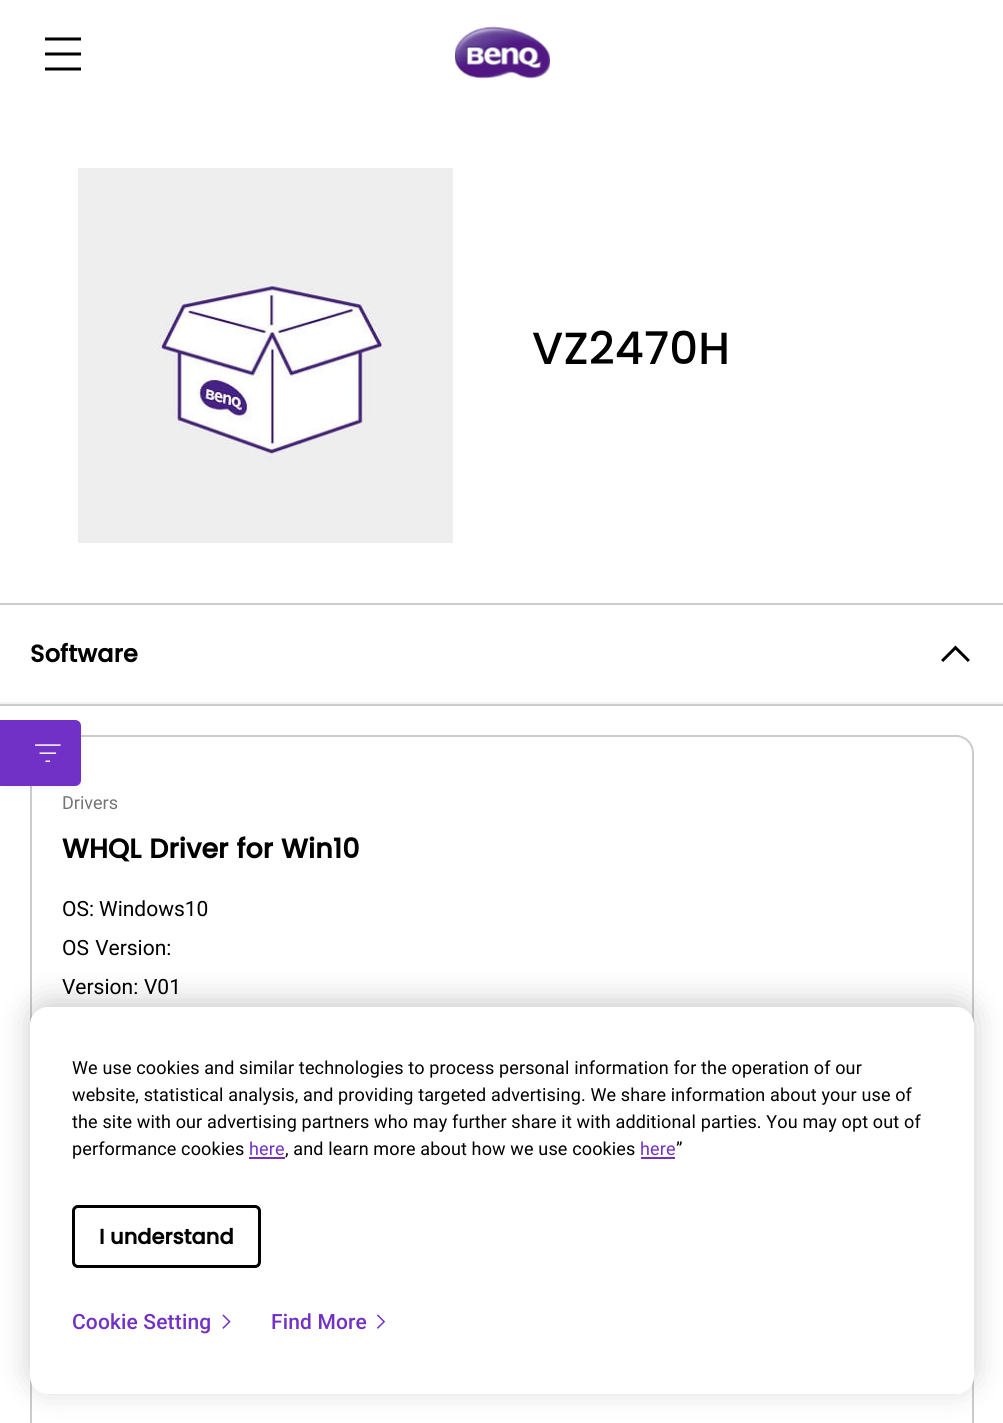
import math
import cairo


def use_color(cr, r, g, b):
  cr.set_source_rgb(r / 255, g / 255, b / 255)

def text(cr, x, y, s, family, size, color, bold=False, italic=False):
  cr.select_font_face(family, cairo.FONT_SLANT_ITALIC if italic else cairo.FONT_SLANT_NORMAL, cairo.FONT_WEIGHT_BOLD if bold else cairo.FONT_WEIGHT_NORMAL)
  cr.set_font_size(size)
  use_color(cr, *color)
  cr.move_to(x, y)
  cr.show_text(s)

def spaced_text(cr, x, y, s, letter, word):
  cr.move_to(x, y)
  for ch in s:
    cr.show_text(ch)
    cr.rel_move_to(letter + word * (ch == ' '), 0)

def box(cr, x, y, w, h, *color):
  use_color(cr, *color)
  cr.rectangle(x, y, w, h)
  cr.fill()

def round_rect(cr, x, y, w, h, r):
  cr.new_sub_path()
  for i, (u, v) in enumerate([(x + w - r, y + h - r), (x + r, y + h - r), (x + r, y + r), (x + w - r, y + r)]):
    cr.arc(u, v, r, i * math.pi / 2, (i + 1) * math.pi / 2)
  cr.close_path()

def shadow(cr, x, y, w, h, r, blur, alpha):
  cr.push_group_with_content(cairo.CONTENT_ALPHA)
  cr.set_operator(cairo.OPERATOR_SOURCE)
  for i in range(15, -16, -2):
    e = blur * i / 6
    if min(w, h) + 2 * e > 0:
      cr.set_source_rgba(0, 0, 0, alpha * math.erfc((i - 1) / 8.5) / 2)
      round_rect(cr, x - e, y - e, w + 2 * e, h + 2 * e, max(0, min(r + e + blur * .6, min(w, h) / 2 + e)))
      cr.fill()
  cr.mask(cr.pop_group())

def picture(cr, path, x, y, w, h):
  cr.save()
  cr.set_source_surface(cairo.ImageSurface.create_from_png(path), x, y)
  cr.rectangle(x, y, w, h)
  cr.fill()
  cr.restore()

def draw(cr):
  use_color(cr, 255, 255, 255)
  cr.paint()
  picture(cr, "img_01.png", 78, 168, 375, 375)
  box(cr, 0, 603, 1003, 2, 204, 204, 204)
  box(cr, 0, 704, 1003, 2, 204, 204, 204)
  box(cr, 0, 702, 1003, 2, 242, 242, 242)
  picture(cr, "img_02.png", 941, 645, 29, 17)
  round_rect(cr, 31, 736, 942, 489, 17)
  use_color(cr, 204, 204, 204)
  cr.stroke()
  use_color(cr, 0, 0, 0)
  shadow(cr, 0, 722, 81, 66, 6, 3, 0.06)
  use_color(cr, 114, 49, 198)
  cr.new_path()
  cr.move_to(0, 720)
  cr.line_to(75, 720)
  cr.curve_to(78.5, 720, 81, 722.5, 81, 726)
  cr.line_to(81, 780)
  cr.curve_to(81, 783.5, 78.5, 786, 75, 786)
  cr.line_to(0, 786)
  cr.close_path()
  cr.fill()
  picture(cr, "img_03.png", 35, 744, 26, 18)
  cr.rectangle(31, 1257, 942, 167)
  use_color(cr, 204, 204, 204)
  cr.stroke()
  use_color(cr, 0, 0, 0)
  cr.set_fill_rule(cairo.FILL_RULE_EVEN_ODD)
  cr.new_path()
  cr.move_to(81, 40.5)
  cr.line_to(45, 40.5)
  cr.line_to(45, 37.5)
  cr.line_to(81, 37.5)
  cr.close_path()
  cr.move_to(81, 55.5)
  cr.line_to(45, 55.5)
  cr.line_to(45, 52.5)
  cr.line_to(81, 52.5)
  cr.close_path()
  cr.move_to(45, 70.5)
  cr.line_to(81, 70.5)
  cr.line_to(81, 67.5)
  cr.line_to(45, 67.5)
  cr.close_path()
  cr.fill()
  picture(cr, "img_04.png", 455, 26, 95, 53)
  use_color(cr, 0, 0, 0)
  shadow(cr, 30, 1001, 944, 387, 18, 15, 0.2)
  use_color(cr, 255, 255, 255)
  round_rect(cr, 30, 1007, 944, 387, 18)
  cr.fill()
  box(cr, 249, 1157, 36, 2, 114, 49, 198)
  box(cr, 641, 1157, 34, 2, 114, 49, 198)
  round_rect(cr, 73.5, 1206.5, 186, 60, 4.5)
  use_color(cr, 0, 0, 0)
  cr.set_line_width(3)
  cr.stroke()
  picture(cr, "img_05.png", 222, 1314, 9, 15)
  picture(cr, "img_06.png", 376, 1314, 10, 15)
  cr.select_font_face("Poppins Medium")
  cr.set_font_size(45)
  spaced_text(cr, 532, 364, "VZ2470H", 0.15, 0)
  cr.select_font_face("Poppins", cairo.FONT_SLANT_NORMAL, cairo.FONT_WEIGHT_BOLD)
  cr.set_font_size(24)
  spaced_text(cr, 30, 662, "Software", 0.15, 0)
  text(cr, 62, 809, "Drivers", "Roboto", 18, (117, 117, 117))
  cr.select_font_face("Poppins", cairo.FONT_SLANT_NORMAL, cairo.FONT_WEIGHT_BOLD)
  cr.set_font_size(27)
  use_color(cr, 0, 0, 0)
  spaced_text(cr, 62, 858, "WHQL Driver for Win10", 0, 1)
  text(cr, 62, 916, "OS:", "Roboto", 21, (0, 0, 0))
  text(cr, 99, 916, "Windows10", "Roboto", 21, (0, 0, 0))
  spaced_text(cr, 62, 955, "OS Version:", 0, 1)
  text(cr, 62, 994, "Version:", "Roboto", 21, (0, 0, 0))
  text(cr, 144, 994, "V01", "Roboto", 21, (0, 0, 0))
  cr.set_font_size(18)
  spaced_text(cr, 72, 1074, "We use cookies and similar technologies to process personal information for the operation of our", 0.15, 0)
  spaced_text(cr, 72, 1101, "website, statistical analysis, and providing targeted advertising. We share information about your use of", 0.15, 0)
  spaced_text(cr, 72, 1128, "the site with our advertising partners who may further share it with additional parties. You may opt out of", 0.15, 0)
  spaced_text(cr, 72, 1155, "performance cookies", 0.15, 0)
  use_color(cr, 114, 49, 198)
  spaced_text(cr, 249, 1155, "here", 0.15, 0)
  use_color(cr, 0, 0, 0)
  spaced_text(cr, 285, 1155, ", and learn more about how we use cookies", 0.15, 0)
  use_color(cr, 114, 49, 198)
  spaced_text(cr, 640, 1155, "here", 0.15, 0)
  use_color(cr, 0, 0, 0)
  spaced_text(cr, 676, 1155, "”", 0.15, 0)
  text(cr, 99, 1244, "I understand", "Poppins", 21, (0, 0, 0), bold=True)
  cr.select_font_face("Roboto Medium")
  use_color(cr, 114, 49, 198)
  spaced_text(cr, 72, 1329, "Cookie Setting", 0.15, 0)
  spaced_text(cr, 271, 1329, "Find More", 0.15, 0)


surface = cairo.ImageSurface(cairo.FORMAT_RGB24, 1003, 1423)
cr = cairo.Context(surface)
options = cairo.FontOptions()
options.set_hint_metrics(cairo.HINT_METRICS_OFF)
options.set_hint_style(cairo.HINT_STYLE_NONE)
cr.set_font_options(options)
cr.set_miter_limit(4)
draw(cr)
surface.write_to_png("out.png")
